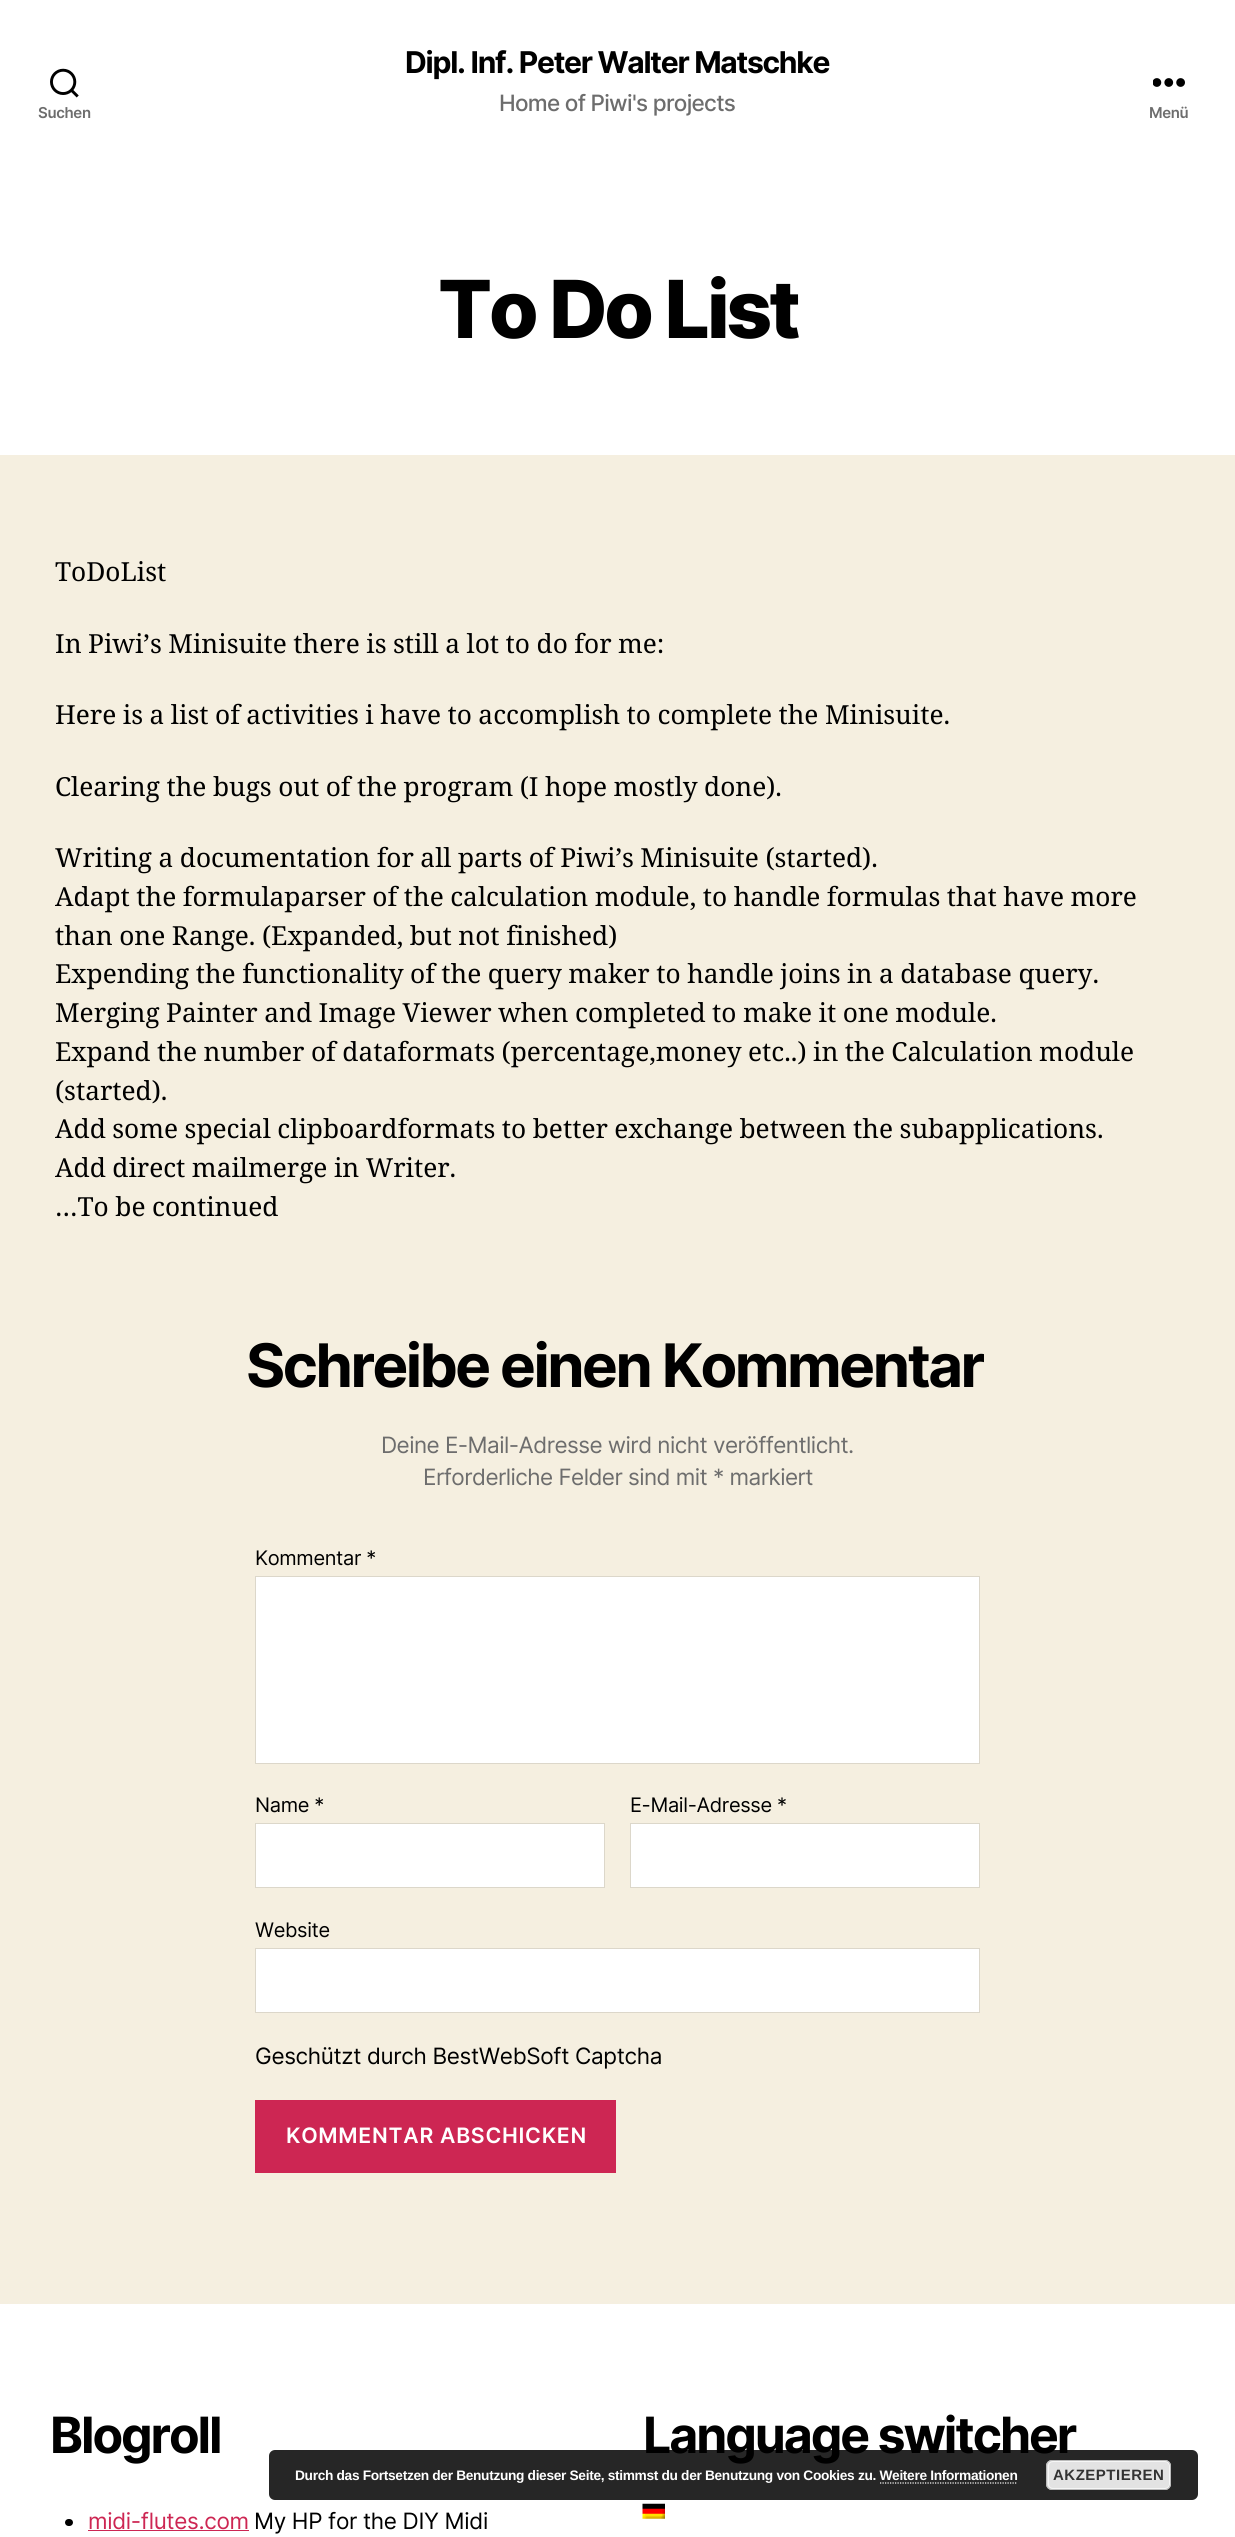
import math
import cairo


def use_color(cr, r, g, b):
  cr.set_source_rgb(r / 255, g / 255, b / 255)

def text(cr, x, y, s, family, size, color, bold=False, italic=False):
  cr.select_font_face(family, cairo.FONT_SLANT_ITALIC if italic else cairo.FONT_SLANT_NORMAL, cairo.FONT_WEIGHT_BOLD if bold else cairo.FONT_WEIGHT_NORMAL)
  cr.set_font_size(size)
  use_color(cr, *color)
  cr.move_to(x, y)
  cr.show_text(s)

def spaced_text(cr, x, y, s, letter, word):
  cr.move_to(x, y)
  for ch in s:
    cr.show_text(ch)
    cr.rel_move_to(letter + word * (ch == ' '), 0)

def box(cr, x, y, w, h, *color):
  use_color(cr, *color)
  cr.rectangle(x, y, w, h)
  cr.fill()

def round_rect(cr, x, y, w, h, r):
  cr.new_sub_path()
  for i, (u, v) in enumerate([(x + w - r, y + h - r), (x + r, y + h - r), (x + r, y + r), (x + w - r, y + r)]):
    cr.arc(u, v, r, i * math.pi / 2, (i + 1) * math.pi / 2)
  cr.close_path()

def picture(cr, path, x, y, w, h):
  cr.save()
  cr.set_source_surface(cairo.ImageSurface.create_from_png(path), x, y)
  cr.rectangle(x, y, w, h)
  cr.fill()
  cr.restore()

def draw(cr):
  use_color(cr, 245, 239, 224)
  cr.paint()
  box(cr, 0, 0, 1235, 455, 255, 255, 255)
  picture(cr, "img_01.png", 50, 68, 29, 30)
  picture(cr, "img_02.png", 1153, 78, 32, 9)
  cr.rectangle(255.5, 1576.5, 724, 187)
  cr.fill_preserve()
  use_color(cr, 220, 215, 202)
  cr.set_line_width(1)
  cr.stroke()
  use_color(cr, 255, 255, 255)
  cr.rectangle(255.5, 1823.5, 349, 64)
  cr.fill_preserve()
  use_color(cr, 220, 215, 202)
  cr.stroke()
  use_color(cr, 255, 255, 255)
  cr.rectangle(630.5, 1823.5, 349, 64)
  cr.fill_preserve()
  use_color(cr, 220, 215, 202)
  cr.stroke()
  use_color(cr, 255, 255, 255)
  cr.rectangle(255.5, 1948.5, 724, 64)
  cr.fill_preserve()
  use_color(cr, 220, 215, 202)
  cr.stroke()
  box(cr, 255, 2100, 361, 73, 205, 38, 83)
  box(cr, 0, 2304, 1235, 233, 255, 255, 255)
  use_color(cr, 0, 0, 0)
  round_rect(cr, 65, 2519, 8, 7, 3.5)
  cr.fill()
  box(cr, 88, 2530, 161, 1, 205, 38, 83)
  picture(cr, "img_03.png", 642, 2503, 23, 16)
  cr.select_font_face("Inter SemiBold")
  cr.set_font_size(15)
  use_color(cr, 109, 109, 109)
  spaced_text(cr, 38, 118, "Suchen", -0.34, 0)
  cr.select_font_face("Inter", cairo.FONT_SLANT_NORMAL, cairo.FONT_WEIGHT_BOLD)
  cr.set_font_size(30)
  use_color(cr, 0, 0, 0)
  spaced_text(cr, 405, 73, "Dipl. Inf. Peter Walter Matschke", -1.25, 0)
  cr.select_font_face("Inter Medium")
  cr.set_font_size(22.5)
  use_color(cr, 109, 109, 109)
  spaced_text(cr, 499, 111, "Home of Piwi's projects", -0.7, 0)
  cr.select_font_face("Inter SemiBold")
  cr.set_font_size(15)
  spaced_text(cr, 1149, 118, "Menü", -0.34, 0)
  cr.select_font_face("Inter ExtraBold")
  cr.set_font_size(80)
  use_color(cr, 0, 0, 0)
  spaced_text(cr, 438, 338, "To Do List", -3.25, 0)
  text(cr, 55, 581, "ToDoList", "Noto Serif", 26.25, (0, 0, 0))
  spaced_text(cr, 55, 653, "In Piwi’s Minisuite there is still a lot to do for me:", 0, -0.3)
  spaced_text(cr, 55, 724, "Here is a list of activities i have to accomplish to complete the Minisuite.", 0, -0.3)
  spaced_text(cr, 55, 796, "Clearing the bugs out of the program (I hope mostly done).", 0, -0.3)
  spaced_text(cr, 55, 867, "Writing a documentation for all parts of Piwi’s Minisuite (started).", 0, -0.3)
  spaced_text(cr, 55, 906, "Adapt the formulaparser of the calculation module, to handle formulas that have more", 0, -0.3)
  spaced_text(cr, 55, 945, "than one Range. (Expanded, but not finished)", 0, -0.3)
  spaced_text(cr, 55, 983, "Expending the functionality of the query maker to handle joins in a database query.", 0, -0.3)
  spaced_text(cr, 55, 1022, "Merging Painter and Image Viewer when completed to make it one module.", 0, -0.3)
  spaced_text(cr, 55, 1061, "Expand the number of dataformats (percentage,money etc..) in the Calculation module", 0, -0.3)
  text(cr, 55, 1100, "(started).", "Noto Serif", 26.25, (0, 0, 0))
  spaced_text(cr, 55, 1138, "Add some special clipboardformats to better exchange between the subapplications.", 0, -0.3)
  spaced_text(cr, 55, 1177, "Add direct mailmerge in Writer.", 0, -0.3)
  spaced_text(cr, 55, 1216, "…To be continued", 0, -0.3)
  cr.select_font_face("Inter", cairo.FONT_SLANT_NORMAL, cairo.FONT_WEIGHT_BOLD)
  cr.set_font_size(60)
  spaced_text(cr, 246, 1387, "Schreibe einen Kommentar", -2.5, 0)
  cr.select_font_face("Inter")
  cr.set_font_size(22.5)
  use_color(cr, 109, 109, 109)
  spaced_text(cr, 381, 1453, "Deine E-Mail-Adresse wird nicht veröffentlicht.", -0.55, 0)
  spaced_text(cr, 423, 1485, "Erforderliche Felder sind mit * markiert", -0.55, 0)
  cr.set_font_size(20)
  use_color(cr, 0, 0, 0)
  spaced_text(cr, 255, 1565, "Kommentar *", -0.34, 0)
  spaced_text(cr, 255, 1812, "Name *", -0.34, 0)
  spaced_text(cr, 630, 1812, "E-Mail-Adresse *", -0.34, 0)
  spaced_text(cr, 255, 1937, "Website", -0.34, 0)
  cr.set_font_size(22.5)
  spaced_text(cr, 255, 2064, "Geschützt durch BestWebSoft Captcha", -0.34, 0)
  cr.select_font_face("Inter SemiBold")
  cr.set_font_size(21.25)
  use_color(cr, 255, 255, 255)
  spaced_text(cr, 286, 2143, "KOMMENTAR ABSCHICKEN", 0.75, 0)
  cr.select_font_face("Inter", cairo.FONT_SLANT_NORMAL, cairo.FONT_WEIGHT_BOLD)
  cr.set_font_size(50)
  use_color(cr, 0, 0, 0)
  spaced_text(cr, 50, 2453, "Blogroll", -2.1, 0)
  cr.select_font_face("Inter")
  cr.set_font_size(22.5)
  use_color(cr, 205, 38, 83)
  spaced_text(cr, 88, 2529, "midi-flutes.com", -0.34, 0)
  use_color(cr, 0, 0, 0)
  spaced_text(cr, 254, 2529, "My HP for the DIY Midi", -0.34, 0)
  cr.select_font_face("Inter", cairo.FONT_SLANT_NORMAL, cairo.FONT_WEIGHT_BOLD)
  cr.set_font_size(50)
  spaced_text(cr, 643, 2453, "Language switcher", -2.1, 0)
  cr.set_source_rgba(0, 0, 0, 0.85)
  round_rect(cr, 269, 2450, 929, 50, 6)
  cr.fill()
  cr.select_font_face("Liberation Sans", cairo.FONT_SLANT_NORMAL, cairo.FONT_WEIGHT_BOLD)
  cr.set_font_size(13.75)
  use_color(cr, 255, 255, 255)
  spaced_text(cr, 295, 2480, "Durch das Fortsetzen der Benutzung dieser Seite, stimmst du der Benutzung von Cookies zu. Weitere Informationen", -0.34, 0)
  use_color(cr, 227, 227, 227)
  round_rect(cr, 1046, 2460, 125, 30, 6)
  cr.fill()
  round_rect(cr, 1048.5, 2461.5, 121, 27, 4.5)
  use_color(cr, 246, 246, 246)
  cr.stroke()
  round_rect(cr, 1046.5, 2460.5, 124, 29, 5.5)
  use_color(cr, 187, 187, 187)
  cr.stroke()
  cr.set_font_size(15)
  use_color(cr, 51, 51, 51)
  spaced_text(cr, 1053, 2480, "AKZEPTIEREN", 0.5, 0)
  cr.new_path()
  cr.move_to(880, 2483)
  cr.line_to(1017.5, 2483)
  use_color(cr, 255, 255, 255)
  cr.set_line_width(1.2)
  cr.set_dash([1.25, 1.25])
  cr.stroke()


surface = cairo.ImageSurface(cairo.FORMAT_RGB24, 1235, 2537)
cr = cairo.Context(surface)
options = cairo.FontOptions()
options.set_hint_metrics(cairo.HINT_METRICS_OFF)
options.set_hint_style(cairo.HINT_STYLE_NONE)
cr.set_font_options(options)
cr.set_miter_limit(4)
draw(cr)
surface.write_to_png("out.png")
